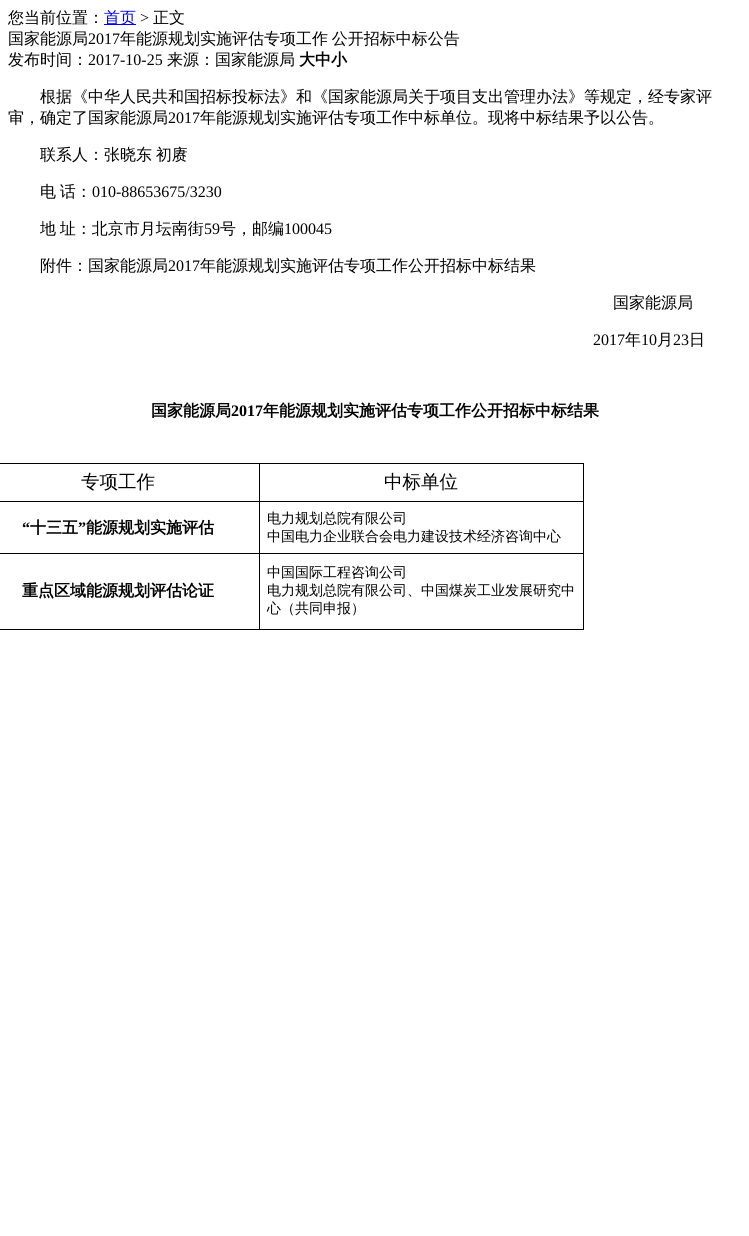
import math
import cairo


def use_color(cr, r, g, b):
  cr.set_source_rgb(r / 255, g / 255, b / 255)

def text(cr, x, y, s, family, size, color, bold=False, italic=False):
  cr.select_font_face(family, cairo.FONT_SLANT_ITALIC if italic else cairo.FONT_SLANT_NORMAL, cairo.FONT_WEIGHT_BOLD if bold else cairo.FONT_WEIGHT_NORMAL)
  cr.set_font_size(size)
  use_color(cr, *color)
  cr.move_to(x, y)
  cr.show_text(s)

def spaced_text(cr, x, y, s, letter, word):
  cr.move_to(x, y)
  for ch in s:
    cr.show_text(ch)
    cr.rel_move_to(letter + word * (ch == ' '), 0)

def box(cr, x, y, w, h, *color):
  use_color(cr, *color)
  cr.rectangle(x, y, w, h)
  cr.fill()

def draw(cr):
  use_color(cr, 255, 255, 255)
  cr.paint()
  box(cr, 104, 24, 32, 1, 0, 0, 238)
  box(cr, 0, 463, 584, 1, 0, 0, 0)
  box(cr, 583, 501, 1, 129, 0, 0, 0)
  box(cr, 583, 463, 1, 39, 0, 0, 0)
  box(cr, 259, 629, 325, 1, 0, 0, 0)
  box(cr, 259, 553, 1, 77, 0, 0, 0)
  box(cr, 259, 553, 325, 1, 0, 0, 0)
  box(cr, 259, 501, 1, 53, 0, 0, 0)
  box(cr, 259, 501, 325, 1, 0, 0, 0)
  box(cr, 259, 463, 1, 39, 0, 0, 0)
  box(cr, 0, 501, 260, 1, 0, 0, 0)
  box(cr, 0, 553, 260, 1, 0, 0, 0)
  box(cr, 0, 629, 260, 1, 0, 0, 0)
  text(cr, 8, 23, "您当前位置：", "WenQuanYi Zen Hei Medium", 16, (0, 0, 0))
  text(cr, 104, 23, "首页", "WenQuanYi Zen Hei Medium", 16, (0, 0, 238))
  text(cr, 140, 23, ">", "Liberation Serif", 16, (0, 0, 0))
  text(cr, 153, 23, "正文", "WenQuanYi Zen Hei Medium", 16, (0, 0, 0))
  text(cr, 8, 44, "国家能源局", "WenQuanYi Zen Hei Medium", 16, (0, 0, 0))
  text(cr, 88, 44, "2017", "Liberation Serif", 16, (0, 0, 0))
  cr.select_font_face("WenQuanYi Zen Hei Medium")
  spaced_text(cr, 120, 44, "年能源规划实施评估专项工作 公开招标中标公告", 0, -1)
  text(cr, 8, 65, "发布时间：", "WenQuanYi Zen Hei Medium", 16, (0, 0, 0))
  text(cr, 88, 65, "2017-10-25", "Liberation Serif", 16, (0, 0, 0))
  text(cr, 167, 65, "来源：国家能源局", "WenQuanYi Zen Hei Medium", 16, (0, 0, 0))
  text(cr, 299, 65, "大中小", "WenQuanYi Zen Hei", 16, (0, 0, 0), bold=True)
  text(cr, 40, 102, "根据《中华人民共和国招标投标法》和《国家能源局关于项目支出管理办法》等规定，经专家评", "WenQuanYi Zen Hei Medium", 16, (0, 0, 0))
  text(cr, 8, 123, "审，确定了国家能源局", "WenQuanYi Zen Hei Medium", 16, (0, 0, 0))
  text(cr, 168, 123, "2017", "Liberation Serif", 16, (0, 0, 0))
  text(cr, 200, 123, "年能源规划实施评估专项工作中标单位。现将中标结果予以公告。", "WenQuanYi Zen Hei Medium", 16, (0, 0, 0))
  spaced_text(cr, 40, 160, "联系人：张晓东 初赓", 0, -1)
  spaced_text(cr, 40, 197, "电 话：", 0, -1)
  text(cr, 92, 197, "010-88653675/3230", "Liberation Serif", 16, (0, 0, 0))
  cr.select_font_face("WenQuanYi Zen Hei Medium")
  spaced_text(cr, 40, 234, "地 址：北京市月坛南街", 0, -1)
  text(cr, 204, 234, "59", "Liberation Serif", 16, (0, 0, 0))
  text(cr, 220, 234, "号，邮编", "WenQuanYi Zen Hei Medium", 16, (0, 0, 0))
  text(cr, 284, 234, "100045", "Liberation Serif", 16, (0, 0, 0))
  text(cr, 40, 271, "附件：国家能源局", "WenQuanYi Zen Hei Medium", 16, (0, 0, 0))
  text(cr, 168, 271, "2017", "Liberation Serif", 16, (0, 0, 0))
  text(cr, 200, 271, "年能源规划实施评估专项工作公开招标中标结果", "WenQuanYi Zen Hei Medium", 16, (0, 0, 0))
  text(cr, 613, 308, "国家能源局", "WenQuanYi Zen Hei Medium", 16, (0, 0, 0))
  text(cr, 593, 345, "2017", "Liberation Serif", 16, (0, 0, 0))
  text(cr, 625, 345, "年", "WenQuanYi Zen Hei Medium", 16, (0, 0, 0))
  text(cr, 641, 345, "10", "Liberation Serif", 16, (0, 0, 0))
  text(cr, 657, 345, "月", "WenQuanYi Zen Hei Medium", 16, (0, 0, 0))
  text(cr, 673, 345, "23", "Liberation Serif", 16, (0, 0, 0))
  text(cr, 689, 345, "日", "WenQuanYi Zen Hei Medium", 16, (0, 0, 0))
  text(cr, 151, 416, "国家能源局", "WenQuanYi Zen Hei", 16, (0, 0, 0), bold=True)
  text(cr, 231, 416, "2017", "Liberation Serif", 16, (0, 0, 0), bold=True)
  text(cr, 263, 416, "年能源规划实施评估专项工作公开招标中标结果", "WenQuanYi Zen Hei", 16, (0, 0, 0), bold=True)
  text(cr, 81, 488, "专项工作", "WenQuanYi Zen Hei Medium", 18.5, (0, 0, 0))
  text(cr, 384, 488, "中标单位", "WenQuanYi Zen Hei Medium", 18.5, (0, 0, 0))
  text(cr, 22, 533, "“", "Liberation Serif", 16, (0, 0, 0), bold=True)
  text(cr, 30, 533, "十三五", "WenQuanYi Zen Hei", 16, (0, 0, 0), bold=True)
  text(cr, 78, 533, "”", "Liberation Serif", 16, (0, 0, 0), bold=True)
  text(cr, 86, 533, "能源规划实施评估", "WenQuanYi Zen Hei", 16, (0, 0, 0), bold=True)
  text(cr, 267, 523, "电力规划总院有限公司", "WenQuanYi Zen Hei Medium", 14, (0, 0, 0))
  text(cr, 267, 541, "中国电力企业联合会电力建设技术经济咨询中心", "WenQuanYi Zen Hei Medium", 14, (0, 0, 0))
  text(cr, 22, 596, "重点区域能源规划评估论证", "WenQuanYi Zen Hei", 16, (0, 0, 0), bold=True)
  text(cr, 267, 577, "中国国际工程咨询公司", "WenQuanYi Zen Hei Medium", 14, (0, 0, 0))
  text(cr, 267, 595, "电力规划总院有限公司、中国煤炭工业发展研究中", "WenQuanYi Zen Hei Medium", 14, (0, 0, 0))
  text(cr, 267, 613, "心（共同申报）", "WenQuanYi Zen Hei Medium", 14, (0, 0, 0))


surface = cairo.ImageSurface(cairo.FORMAT_RGB24, 749, 1236)
cr = cairo.Context(surface)
options = cairo.FontOptions()
options.set_hint_metrics(cairo.HINT_METRICS_OFF)
options.set_hint_style(cairo.HINT_STYLE_NONE)
cr.set_font_options(options)
cr.set_miter_limit(4)
draw(cr)
surface.write_to_png("out.png")
